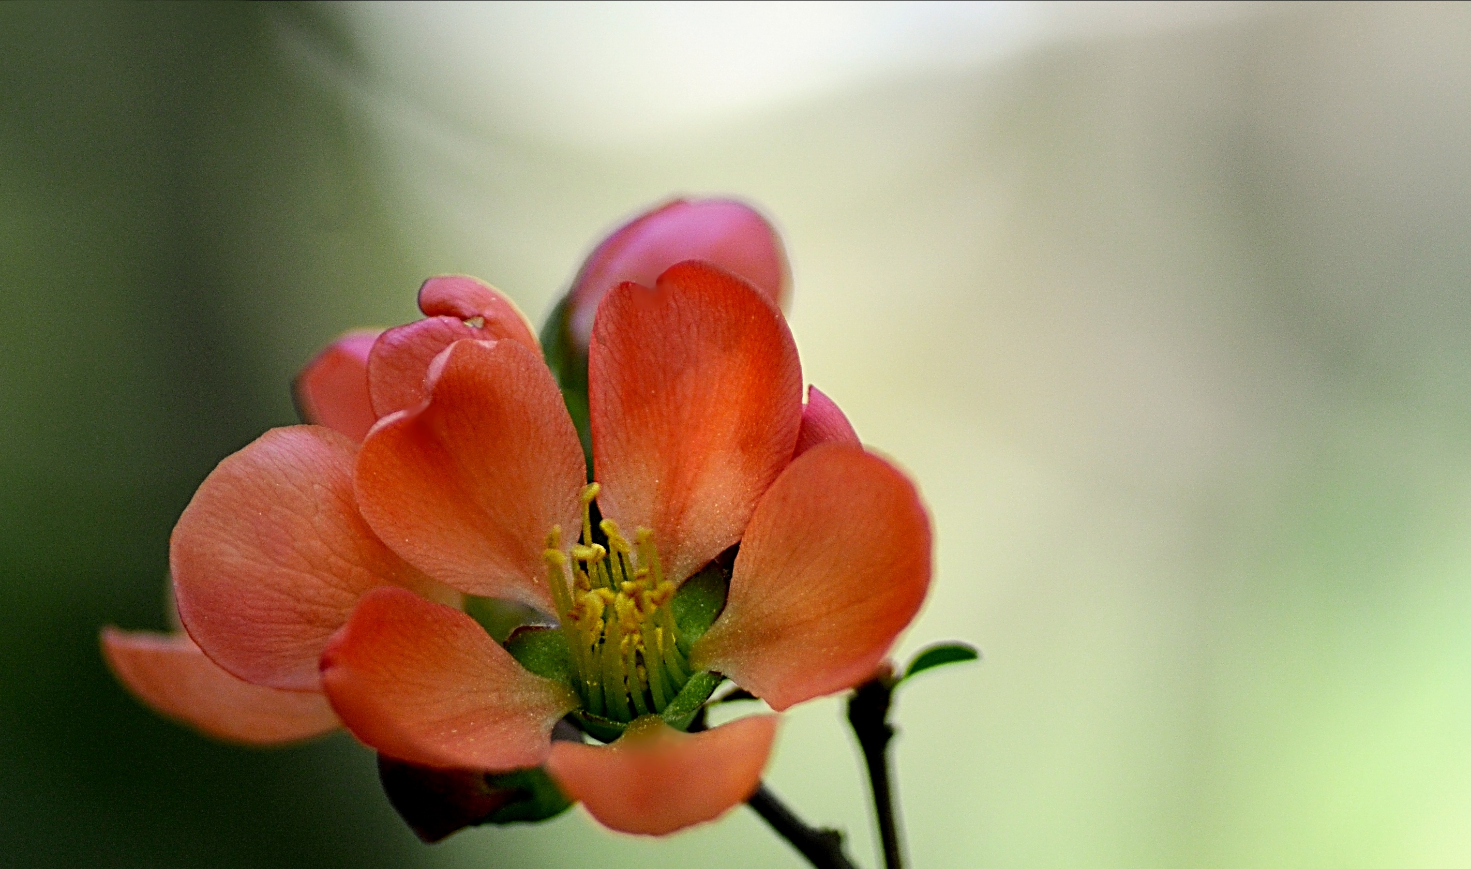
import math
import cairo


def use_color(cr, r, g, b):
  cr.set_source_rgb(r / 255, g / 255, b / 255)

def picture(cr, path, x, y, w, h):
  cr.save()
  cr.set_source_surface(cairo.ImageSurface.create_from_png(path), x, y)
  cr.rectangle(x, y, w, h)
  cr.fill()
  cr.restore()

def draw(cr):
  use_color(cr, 255, 255, 255)
  cr.paint()
  picture(cr, "img_01.png", 0, 0, 1471, 869)


surface = cairo.ImageSurface(cairo.FORMAT_RGB24, 1471, 869)
cr = cairo.Context(surface)
options = cairo.FontOptions()
options.set_hint_metrics(cairo.HINT_METRICS_OFF)
options.set_hint_style(cairo.HINT_STYLE_NONE)
cr.set_font_options(options)
cr.set_miter_limit(4)
draw(cr)
surface.write_to_png("out.png")
